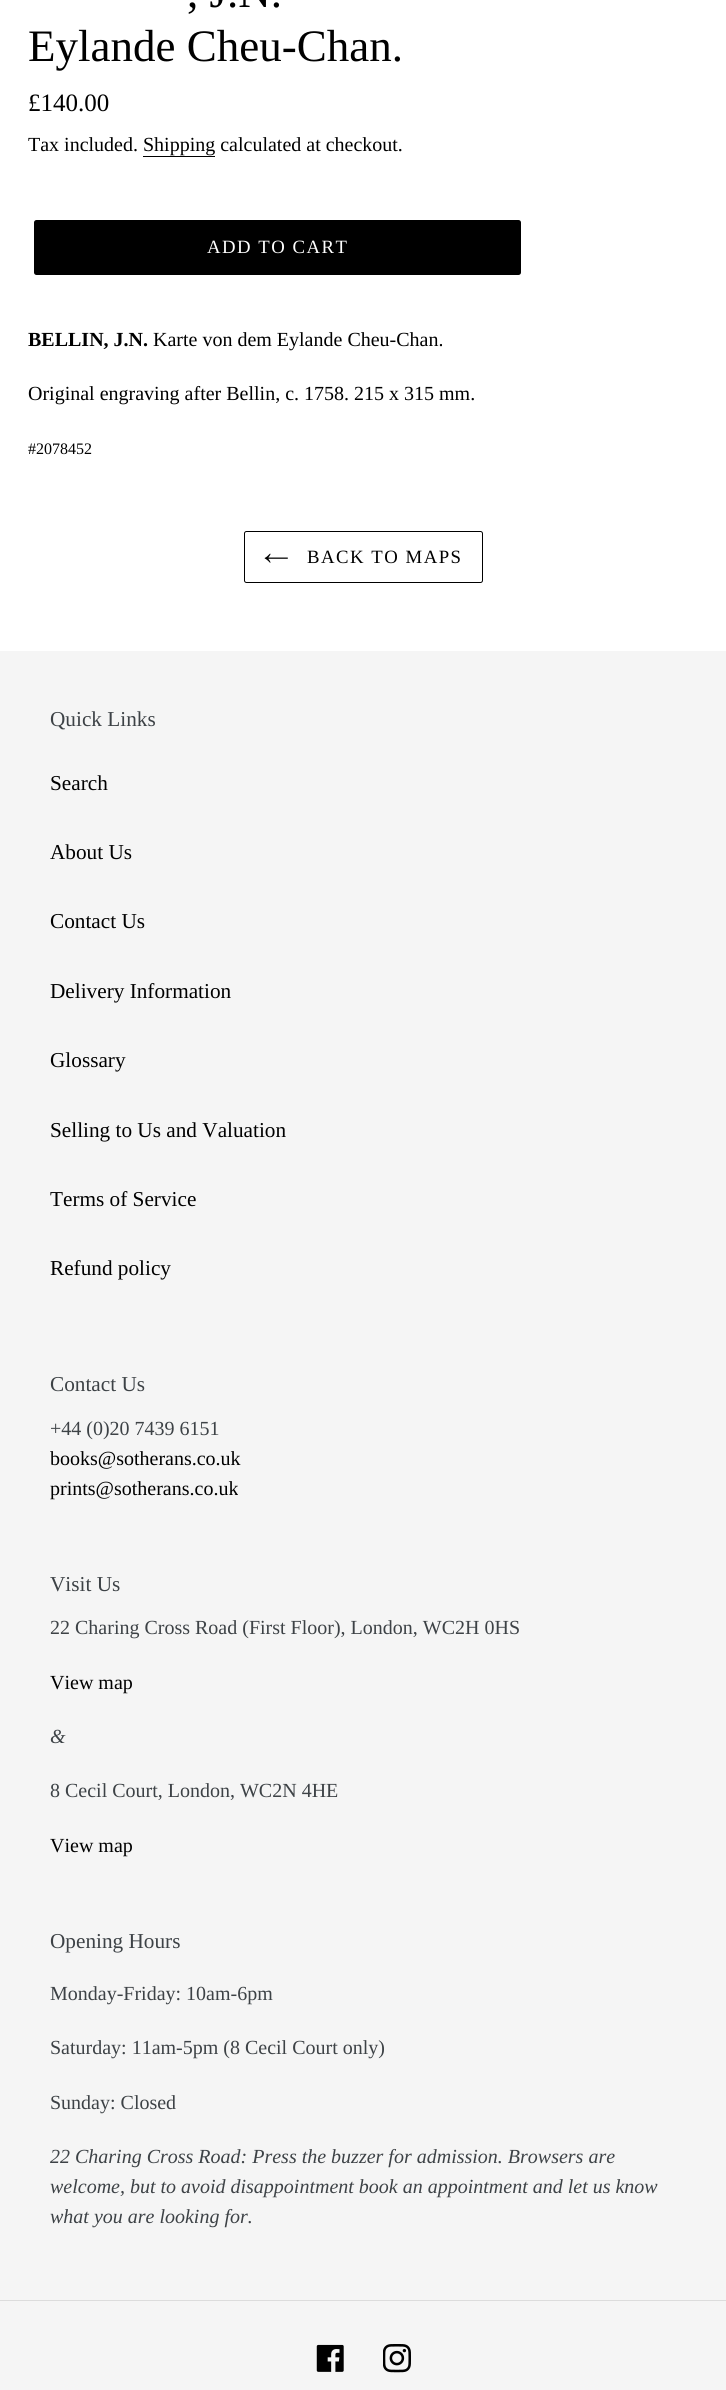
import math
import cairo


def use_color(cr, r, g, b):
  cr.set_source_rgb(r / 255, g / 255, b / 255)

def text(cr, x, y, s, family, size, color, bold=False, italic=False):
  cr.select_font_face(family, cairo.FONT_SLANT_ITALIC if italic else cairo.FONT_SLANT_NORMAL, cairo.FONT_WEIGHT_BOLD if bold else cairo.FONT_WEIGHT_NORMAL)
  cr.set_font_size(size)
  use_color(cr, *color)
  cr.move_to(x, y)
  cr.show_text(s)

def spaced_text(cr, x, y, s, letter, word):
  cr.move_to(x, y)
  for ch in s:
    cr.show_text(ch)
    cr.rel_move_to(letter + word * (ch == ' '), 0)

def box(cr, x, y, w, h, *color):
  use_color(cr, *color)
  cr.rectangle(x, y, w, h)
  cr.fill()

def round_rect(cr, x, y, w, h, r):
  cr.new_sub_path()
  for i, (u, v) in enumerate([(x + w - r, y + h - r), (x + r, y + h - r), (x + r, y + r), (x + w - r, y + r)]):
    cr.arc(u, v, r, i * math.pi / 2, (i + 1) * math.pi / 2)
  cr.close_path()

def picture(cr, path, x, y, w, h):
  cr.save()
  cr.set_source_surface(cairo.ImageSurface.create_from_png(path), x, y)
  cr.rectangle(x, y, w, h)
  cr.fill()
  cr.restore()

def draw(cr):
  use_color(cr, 255, 255, 255)
  cr.paint()
  box(cr, 143, 156, 72, 1, 0, 0, 0)
  round_rect(cr, 34, 220, 487, 55, 2.5)
  cr.fill()
  round_rect(cr, 244.5, 531.5, 238, 51, 2)
  cr.set_line_width(1)
  cr.stroke()
  picture(cr, "img_01.png", 264, 553, 24, 10)
  box(cr, 0, 651, 726, 1739, 245, 245, 245)
  box(cr, 0, 2300, 726, 1, 220, 220, 220)
  picture(cr, "img_02.png", 316, 2344, 28, 28)
  picture(cr, "img_03.png", 383, 2344, 28, 29)
  text(cr, 187, 7, ", J.N.", "Liberation Serif", 45, (0, 0, 0))
  text(cr, 28, 61, "Eylande Cheu-Chan.", "Liberation Serif", 45, (0, 0, 0))
  text(cr, 28, 111, "£140.00", "Liberation Serif", 25, (0, 0, 0))
  text(cr, 28, 151, "Tax included. Shipping calculated at checkout.", "Liberation Serif", 20, (0, 0, 0))
  cr.set_font_size(18.75)
  use_color(cr, 255, 255, 255)
  spaced_text(cr, 207, 253, "ADD TO CART", 1.5, 0)
  text(cr, 28, 346, "BELLIN, J.N.", "Liberation Serif", 20, (0, 0, 0), bold=True)
  text(cr, 153, 346, "Karte von dem Eylande Cheu-Chan.", "Liberation Serif", 20, (0, 0, 0))
  text(cr, 28, 400, "Original engraving after Bellin, c. 1758. 215 x 315 mm.", "Liberation Serif", 20, (0, 0, 0))
  text(cr, 28, 454, "#2078452", "Liberation Serif", 16, (0, 0, 0))
  cr.set_font_size(18.75)
  spaced_text(cr, 307, 563, "BACK TO MAPS", 1.5, 0)
  text(cr, 50, 726, "Quick Links", "Liberation Serif", 21.25, (61, 66, 70))
  text(cr, 50, 790, "Search", "Liberation Serif", 21.25, (0, 0, 0))
  text(cr, 50, 859, "About Us", "Liberation Serif", 21.25, (0, 0, 0))
  text(cr, 50, 928, "Contact Us", "Liberation Serif", 21.25, (0, 0, 0))
  text(cr, 50, 998, "Delivery Information", "Liberation Serif", 21.25, (0, 0, 0))
  text(cr, 50, 1067, "Glossary", "Liberation Serif", 21.25, (0, 0, 0))
  text(cr, 50, 1137, "Selling to Us and Valuation", "Liberation Serif", 21.25, (0, 0, 0))
  text(cr, 50, 1206, "Terms of Service", "Liberation Serif", 21.25, (0, 0, 0))
  text(cr, 50, 1275, "Refund policy", "Liberation Serif", 21.25, (0, 0, 0))
  text(cr, 50, 1391, "Contact Us", "Liberation Serif", 21.25, (61, 66, 70))
  text(cr, 50, 1435, "+44 (0)20 7439 6151", "Liberation Serif", 20, (61, 66, 70))
  text(cr, 50, 1465, "books@sotherans.co.uk", "Liberation Serif", 20, (0, 0, 0))
  text(cr, 50, 1495, "prints@sotherans.co.uk", "Liberation Serif", 20, (0, 0, 0))
  text(cr, 50, 1591, "Visit Us", "Liberation Serif", 21.25, (61, 66, 70))
  text(cr, 50, 1634, "22 Charing Cross Road (First Floor), London, WC2H 0HS", "Liberation Serif", 20, (61, 66, 70))
  text(cr, 50, 1689, "View map", "Liberation Serif", 20, (0, 0, 0))
  text(cr, 50, 1743, "&", "Liberation Serif", 20, (61, 66, 70), italic=True)
  text(cr, 50, 1797, "8 Cecil Court, London, WC2N 4HE", "Liberation Serif", 20, (61, 66, 70))
  text(cr, 50, 1852, "View map", "Liberation Serif", 20, (0, 0, 0))
  text(cr, 50, 1948, "Opening Hours", "Liberation Serif", 21.25, (61, 66, 70))
  text(cr, 50, 2000, "Monday-Friday: 10am-6pm", "Liberation Serif", 20, (61, 66, 70))
  text(cr, 50, 2054, "Saturday: 11am-5pm (8 Cecil Court only)", "Liberation Serif", 20, (61, 66, 70))
  text(cr, 50, 2109, "Sunday: Closed", "Liberation Serif", 20, (61, 66, 70))
  text(cr, 50, 2163, "22 Charing Cross Road: Press the buzzer for admission. Browsers are", "Liberation Serif", 20, (61, 66, 70), italic=True)
  text(cr, 50, 2193, "welcome, but to avoid disappointment book an appointment and let us know", "Liberation Serif", 20, (61, 66, 70), italic=True)
  text(cr, 50, 2223, "what you are looking for.", "Liberation Serif", 20, (61, 66, 70), italic=True)


surface = cairo.ImageSurface(cairo.FORMAT_RGB24, 726, 2390)
cr = cairo.Context(surface)
options = cairo.FontOptions()
options.set_hint_metrics(cairo.HINT_METRICS_OFF)
options.set_hint_style(cairo.HINT_STYLE_NONE)
cr.set_font_options(options)
cr.set_miter_limit(4)
draw(cr)
surface.write_to_png("out.png")
